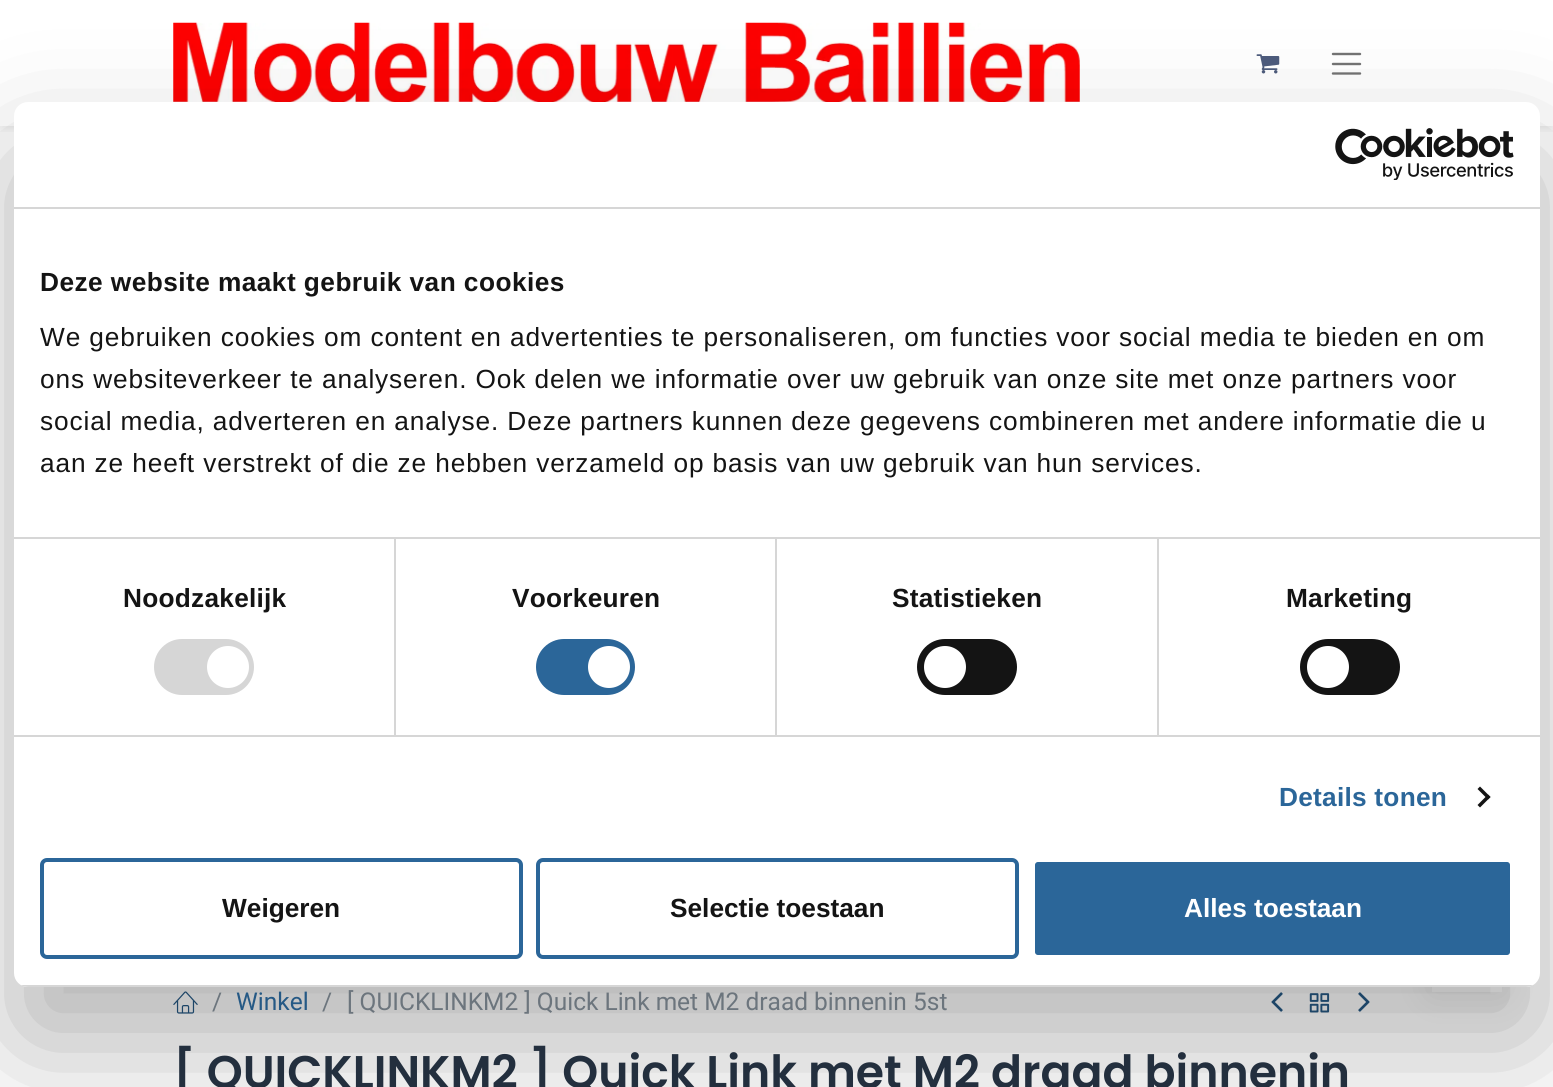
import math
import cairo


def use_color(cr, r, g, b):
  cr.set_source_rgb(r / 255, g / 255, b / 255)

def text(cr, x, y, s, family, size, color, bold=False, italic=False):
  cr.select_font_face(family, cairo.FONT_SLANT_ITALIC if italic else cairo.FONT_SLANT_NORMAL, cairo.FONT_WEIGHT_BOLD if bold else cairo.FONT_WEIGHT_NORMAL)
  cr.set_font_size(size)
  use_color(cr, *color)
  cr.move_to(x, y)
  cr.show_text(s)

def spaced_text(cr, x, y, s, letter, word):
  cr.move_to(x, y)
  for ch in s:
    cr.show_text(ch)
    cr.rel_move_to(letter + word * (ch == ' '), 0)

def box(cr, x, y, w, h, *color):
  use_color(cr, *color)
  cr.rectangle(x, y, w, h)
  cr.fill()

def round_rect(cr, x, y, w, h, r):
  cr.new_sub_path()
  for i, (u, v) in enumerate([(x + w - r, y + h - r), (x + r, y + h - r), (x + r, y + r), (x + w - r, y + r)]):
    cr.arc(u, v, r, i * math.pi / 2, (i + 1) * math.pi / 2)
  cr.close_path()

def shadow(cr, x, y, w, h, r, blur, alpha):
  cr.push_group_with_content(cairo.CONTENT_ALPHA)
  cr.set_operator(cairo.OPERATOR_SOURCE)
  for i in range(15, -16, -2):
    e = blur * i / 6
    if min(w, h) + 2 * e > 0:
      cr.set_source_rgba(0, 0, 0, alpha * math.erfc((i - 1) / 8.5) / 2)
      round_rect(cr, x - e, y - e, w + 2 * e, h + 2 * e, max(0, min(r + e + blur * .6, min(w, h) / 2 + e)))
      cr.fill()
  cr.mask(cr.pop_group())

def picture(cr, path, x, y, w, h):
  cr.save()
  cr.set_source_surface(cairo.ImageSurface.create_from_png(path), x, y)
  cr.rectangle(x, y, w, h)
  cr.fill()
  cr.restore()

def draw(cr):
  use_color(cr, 255, 255, 255)
  cr.paint()
  cr.save()
  cr.rectangle(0, 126, 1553, 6)
  cr.clip()
  use_color(cr, 0, 0, 0)
  shadow(cr, 0, 4, 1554, 126, 0, 3.5, 0.07)
  cr.restore()
  picture(cr, "img_02.png", 173, 22, 907, 80)
  picture(cr, "img_03.png", 1256, 54, 24, 20)
  cr.new_path()
  cr.move_to(1333, 54)
  cr.line_to(1360, 54)
  cr.move_to(1333, 64)
  cr.line_to(1360, 64)
  cr.move_to(1333, 73.5)
  cr.line_to(1360, 73.5)
  use_color(cr, 115, 115, 115)
  cr.set_line_width(2.4)
  cr.set_line_cap(cairo.LINE_CAP_ROUND)
  cr.stroke()
  picture(cr, "img_04.png", 173, 991, 25, 23)
  picture(cr, "img_05.png", 1271, 992, 12, 20)
  picture(cr, "img_06.png", 1309, 993, 21, 20)
  picture(cr, "img_07.png", 1358, 992, 12, 20)
  use_color(cr, 0, 0, 0)
  shadow(cr, 1432, 922, 70, 70, 0, 17.5, 0.1)
  box(cr, 1432, 987, 70, 5, 255, 255, 255)
  use_color(cr, 0, 0, 0)
  shadow(cr, 14, 158, 1526, 885, 14, 59.5, 0.3)
  use_color(cr, 255, 255, 255)
  round_rect(cr, 14, 102, 1526, 885, 14)
  cr.fill()
  box(cr, 14, 207, 1526, 2, 214, 214, 214)
  picture(cr, "img_01.png", 1335, 128, 179, 52)
  box(cr, 14, 537, 1526, 2, 214, 214, 214)
  box(cr, 14, 735, 1526, 2, 214, 214, 214)
  box(cr, 394, 539, 2, 196, 214, 214, 214)
  round_rect(cr, 154, 639, 100, 56, 28)
  cr.fill()
  use_color(cr, 255, 255, 255)
  cr.arc(228, 667, 21, 0, 2 * math.pi)
  cr.fill()
  box(cr, 775, 539, 2, 196, 214, 214, 214)
  use_color(cr, 43, 102, 153)
  round_rect(cr, 536, 639, 99, 56, 28)
  cr.fill()
  use_color(cr, 255, 255, 255)
  cr.arc(609, 667, 21, 0, 2 * math.pi)
  cr.fill()
  box(cr, 1157, 539, 2, 196, 214, 214, 214)
  use_color(cr, 20, 20, 20)
  round_rect(cr, 917, 639, 100, 56, 28)
  cr.fill()
  use_color(cr, 255, 255, 255)
  cr.arc(945, 667, 21, 0, 2 * math.pi)
  cr.fill()
  use_color(cr, 20, 20, 20)
  round_rect(cr, 1300, 639, 100, 56, 28)
  cr.fill()
  use_color(cr, 255, 255, 255)
  cr.arc(1328, 667, 21, 0, 2 * math.pi)
  cr.fill()
  use_color(cr, 20, 20, 20)
  cr.new_path()
  cr.move_to(1480, 786.5)
  cr.line_to(1490.5, 797)
  cr.line_to(1488, 799.5)
  cr.line_to(1477.5, 789)
  cr.close_path()
  cr.fill()
  cr.new_path()
  cr.move_to(1488, 794.5)
  cr.line_to(1490.5, 797)
  cr.line_to(1480, 807.5)
  cr.line_to(1477.5, 805)
  cr.close_path()
  cr.fill()
  cr.save()
  round_rect(cr, 14, 102, 1526, 885, 14)
  cr.clip()
  box(cr, 14, 985, 1526, 2, 214, 214, 214)
  cr.restore()
  round_rect(cr, 42, 860, 479, 97, 5)
  use_color(cr, 43, 102, 153)
  cr.set_line_width(4)
  cr.set_line_cap(cairo.LINE_CAP_BUTT)
  cr.stroke()
  round_rect(cr, 538, 860, 479, 97, 5)
  cr.stroke()
  round_rect(cr, 1033, 860, 479, 97, 5)
  cr.fill_preserve()
  use_color(cr, 255, 255, 255)
  cr.stroke()
  cr.select_font_face("Liberation Sans", cairo.FONT_SLANT_NORMAL, cairo.FONT_WEIGHT_BOLD)
  cr.set_font_size(26.25)
  use_color(cr, 20, 20, 20)
  spaced_text(cr, 40, 291, "Deze website maakt gebruik van cookies", 0.45, 0)
  cr.select_font_face("Liberation Sans")
  spaced_text(cr, 40, 346, "We gebruiken cookies om content en advertenties te personaliseren, om functies voor social media te bieden en om", 0.88, 0)
  spaced_text(cr, 40, 388, "ons websiteverkeer te analyseren. Ook delen we informatie over uw gebruik van onze site met onze partners voor", 0.88, 0)
  spaced_text(cr, 40, 430, "social media, adverteren en analyse. Deze partners kunnen deze gegevens combineren met andere informatie die u", 0.88, 0)
  spaced_text(cr, 40, 472, "aan ze heeft verstrekt of die ze hebben verzameld op basis van uw gebruik van hun services.", 0.88, 0)
  cr.select_font_face("Liberation Sans", cairo.FONT_SLANT_NORMAL, cairo.FONT_WEIGHT_BOLD)
  spaced_text(cr, 123, 607, "Noodzakelijk", 0.25, 0)
  spaced_text(cr, 512, 607, "Voorkeuren", 0.25, 0)
  spaced_text(cr, 892, 607, "Statistieken", 0.25, 0)
  spaced_text(cr, 1286, 607, "Marketing", 0.25, 0)
  use_color(cr, 43, 102, 153)
  spaced_text(cr, 1279, 806, "Details tonen", 0.25, 0)
  text(cr, 222, 917, "Weigeren", "Liberation Sans", 26.25, (20, 20, 20), bold=True)
  text(cr, 670, 917, "Selectie toestaan", "Liberation Sans", 26.25, (20, 20, 20), bold=True)
  text(cr, 1184, 917, "Alles toestaan", "Liberation Sans", 26.25, (255, 255, 255), bold=True)
  text(cr, 212, 1010, "/", "Roboto", 24.5, (108, 117, 125))
  text(cr, 236, 1010, "Winkel", "Roboto", 24.5, (37, 89, 133))
  text(cr, 322, 1010, "/", "Roboto", 24.5, (108, 117, 125))
  text(cr, 347, 1010, "[ QUICKLINKM2 ] Quick Link met M2 draad binnenin 5st", "Roboto", 24.5, (108, 117, 125))
  text(cr, 173, 1088, "[ QUICKLINKM2 ] Quick Link met M2 draad binnenin", "Poppins SemiBold", 45.75, (35, 47, 62))


surface = cairo.ImageSurface(cairo.FORMAT_RGB24, 1553, 1087)
cr = cairo.Context(surface)
options = cairo.FontOptions()
options.set_hint_metrics(cairo.HINT_METRICS_OFF)
options.set_hint_style(cairo.HINT_STYLE_NONE)
cr.set_font_options(options)
cr.set_miter_limit(4)
draw(cr)
surface.write_to_png("out.png")
